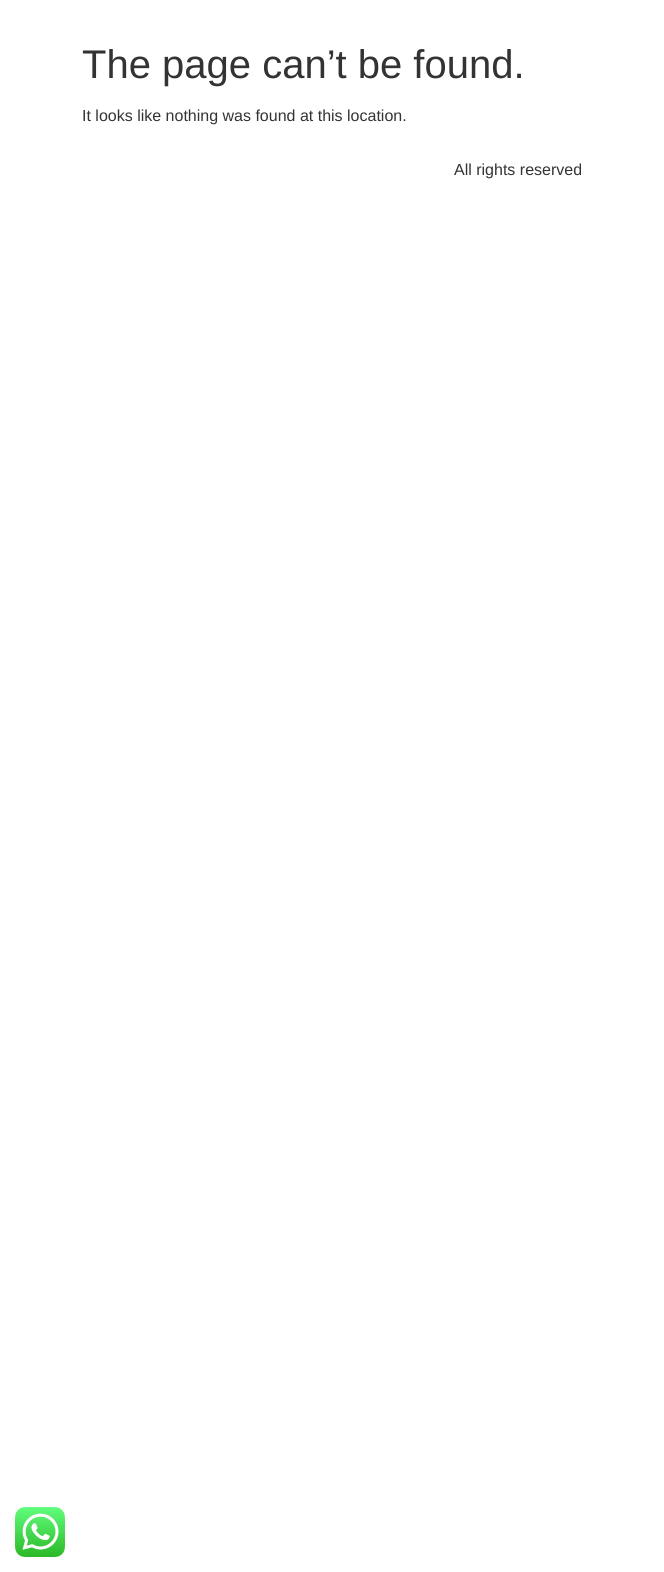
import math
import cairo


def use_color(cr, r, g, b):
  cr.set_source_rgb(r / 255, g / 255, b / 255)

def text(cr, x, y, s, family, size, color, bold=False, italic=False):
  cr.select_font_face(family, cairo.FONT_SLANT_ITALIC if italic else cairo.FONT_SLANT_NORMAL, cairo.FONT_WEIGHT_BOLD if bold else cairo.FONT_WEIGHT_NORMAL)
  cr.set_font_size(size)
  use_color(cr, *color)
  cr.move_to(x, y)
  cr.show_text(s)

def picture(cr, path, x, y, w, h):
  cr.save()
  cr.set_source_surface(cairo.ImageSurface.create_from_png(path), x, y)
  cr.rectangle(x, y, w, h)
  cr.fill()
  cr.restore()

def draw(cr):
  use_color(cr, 255, 255, 255)
  cr.paint()
  picture(cr, "img_01.png", 15, 1507, 50, 50)
  text(cr, 82, 78, "The page can’t be found.", "Liberation Sans", 40, (51, 51, 51))
  text(cr, 82, 121, "It looks like nothing was found at this location.", "Liberation Sans", 16, (51, 51, 51))
  text(cr, 454, 175, "All rights reserved", "Liberation Sans", 16, (51, 51, 51))


surface = cairo.ImageSurface(cairo.FORMAT_RGB24, 664, 1572)
cr = cairo.Context(surface)
options = cairo.FontOptions()
options.set_hint_metrics(cairo.HINT_METRICS_OFF)
options.set_hint_style(cairo.HINT_STYLE_NONE)
cr.set_font_options(options)
cr.set_miter_limit(4)
draw(cr)
surface.write_to_png("out.png")
